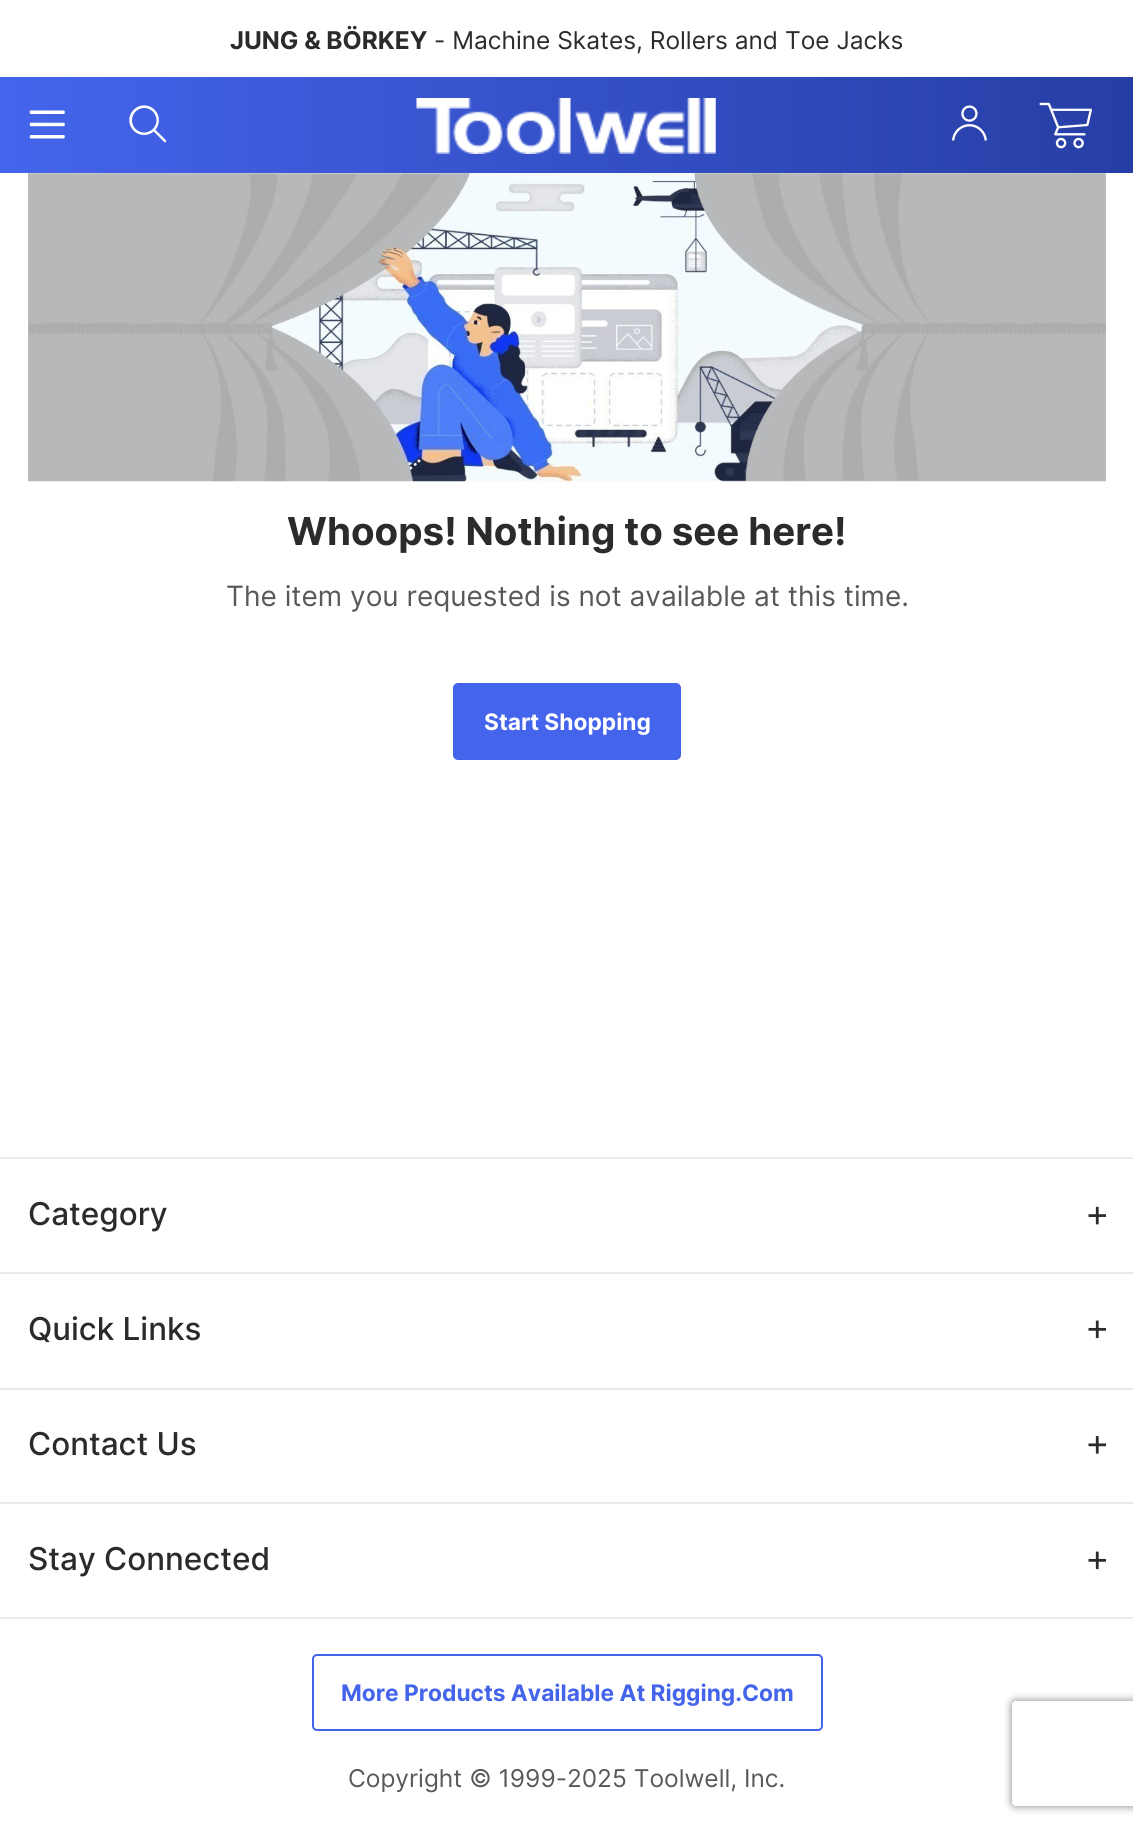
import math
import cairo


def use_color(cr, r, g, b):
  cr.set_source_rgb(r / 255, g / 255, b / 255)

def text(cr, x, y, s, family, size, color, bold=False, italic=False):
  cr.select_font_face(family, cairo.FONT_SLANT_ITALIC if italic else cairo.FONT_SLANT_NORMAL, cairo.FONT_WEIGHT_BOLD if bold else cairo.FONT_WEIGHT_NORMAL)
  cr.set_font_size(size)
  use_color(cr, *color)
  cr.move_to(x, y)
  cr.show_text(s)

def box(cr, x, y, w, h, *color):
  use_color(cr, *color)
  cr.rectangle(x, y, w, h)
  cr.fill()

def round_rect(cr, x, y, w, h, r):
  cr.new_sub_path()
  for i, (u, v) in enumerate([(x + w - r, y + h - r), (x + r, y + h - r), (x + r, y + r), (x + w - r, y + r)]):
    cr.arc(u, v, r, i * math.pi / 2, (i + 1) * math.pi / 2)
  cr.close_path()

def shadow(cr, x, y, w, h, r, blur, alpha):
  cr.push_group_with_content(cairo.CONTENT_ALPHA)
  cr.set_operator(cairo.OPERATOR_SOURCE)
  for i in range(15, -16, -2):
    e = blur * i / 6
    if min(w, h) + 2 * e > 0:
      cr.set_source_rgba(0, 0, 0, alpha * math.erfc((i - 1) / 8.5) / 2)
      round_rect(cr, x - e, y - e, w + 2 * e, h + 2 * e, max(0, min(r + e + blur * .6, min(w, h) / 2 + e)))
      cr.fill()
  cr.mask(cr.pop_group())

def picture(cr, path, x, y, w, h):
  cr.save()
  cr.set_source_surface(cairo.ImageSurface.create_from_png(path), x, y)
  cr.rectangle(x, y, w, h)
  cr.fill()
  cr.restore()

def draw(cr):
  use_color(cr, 255, 255, 255)
  cr.paint()
  gradient = cairo.LinearGradient(0, 125, 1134, 125)
  gradient.add_color_stop_rgba(0, 0.267, 0.392, 0.925, 1)
  gradient.add_color_stop_rgba(1, 0.149, 0.243, 0.643, 1)
  cr.set_source(gradient)
  cr.rectangle(0, 77, 1133, 96)
  cr.fill()
  picture(cr, "img_01.png", 29, 110, 36, 29)
  picture(cr, "img_02.png", 129, 105, 38, 38)
  picture(cr, "img_03.png", 416, 98, 300, 56)
  picture(cr, "img_04.png", 952, 105, 35, 36)
  picture(cr, "img_05.png", 1039, 102, 53, 47)
  picture(cr, "img_06.png", 28, 173, 1078, 309)
  use_color(cr, 68, 100, 236)
  round_rect(cr, 454, 684, 226, 75, 4)
  cr.fill_preserve()
  cr.stroke()
  box(cr, 0, 1157, 1133, 2, 234, 234, 234)
  box(cr, 0, 1272, 1133, 2, 234, 234, 234)
  picture(cr, "img_07.png", 1088, 1206, 18, 19)
  box(cr, 0, 1388, 1133, 2, 234, 234, 234)
  picture(cr, "img_08.png", 1088, 1320, 18, 19)
  box(cr, 0, 1502, 1133, 2, 234, 234, 234)
  picture(cr, "img_09.png", 1088, 1436, 18, 18)
  box(cr, 0, 1617, 1133, 2, 234, 234, 234)
  picture(cr, "img_08.png", 1088, 1551, 18, 19)
  round_rect(cr, 313, 1655, 509, 75, 4)
  use_color(cr, 68, 100, 236)
  cr.stroke()
  cr.save()
  cr.set_fill_rule(cairo.FILL_RULE_EVEN_ODD)
  cr.new_path()
  cr.move_to(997, 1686)
  cr.line_to(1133, 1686)
  cr.line_to(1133, 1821)
  cr.line_to(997, 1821)
  cr.close_path()
  cr.move_to(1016, 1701)
  cr.line_to(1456, 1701)
  cr.curve_to(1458, 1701, 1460, 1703, 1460, 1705)
  cr.line_to(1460, 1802)
  cr.curve_to(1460, 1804, 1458, 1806, 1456, 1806)
  cr.line_to(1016, 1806)
  cr.curve_to(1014, 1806, 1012, 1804, 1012, 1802)
  cr.line_to(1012, 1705)
  cr.curve_to(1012, 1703, 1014, 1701, 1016, 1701)
  cr.close_path()
  cr.clip()
  use_color(cr, 128, 128, 128)
  shadow(cr, 1012, 1701, 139, 105, 4, 4.5, 1)
  cr.restore()
  text(cr, 230, 49, "JUNG & BÖRKEY", "Inter", 24.5, (43, 43, 43), bold=True)
  text(cr, 434, 49, "- Machine Skates, Rollers and Toe Jacks", "Inter", 24.5, (43, 43, 43))
  text(cr, 287, 545, "Whoops! Nothing to see here!", "Inter", 38.5, (43, 43, 43), bold=True)
  text(cr, 226, 606, "The item you requested is not available at this time.", "Inter", 28, (87, 90, 93))
  text(cr, 484, 730, "Start Shopping", "Inter", 22.75, (255, 255, 255), bold=True)
  text(cr, 28, 1225, "Category", "Inter Medium", 31.5, (43, 43, 43))
  text(cr, 28, 1340, "Quick Links", "Inter Medium", 31.5, (43, 43, 43))
  text(cr, 28, 1455, "Contact Us", "Inter Medium", 31.5, (43, 43, 43))
  text(cr, 28, 1570, "Stay Connected", "Inter Medium", 31.5, (43, 43, 43))
  text(cr, 341, 1701, "More Products Available At Rigging.Com", "Inter", 22.75, (68, 100, 236), bold=True)
  text(cr, 348, 1787, "Copyright © 1999-2025 Toolwell, Inc.", "Inter", 24.5, (87, 90, 93))


surface = cairo.ImageSurface(cairo.FORMAT_RGB24, 1133, 1829)
cr = cairo.Context(surface)
options = cairo.FontOptions()
options.set_hint_metrics(cairo.HINT_METRICS_OFF)
options.set_hint_style(cairo.HINT_STYLE_NONE)
cr.set_font_options(options)
cr.set_miter_limit(4)
draw(cr)
surface.write_to_png("out.png")
